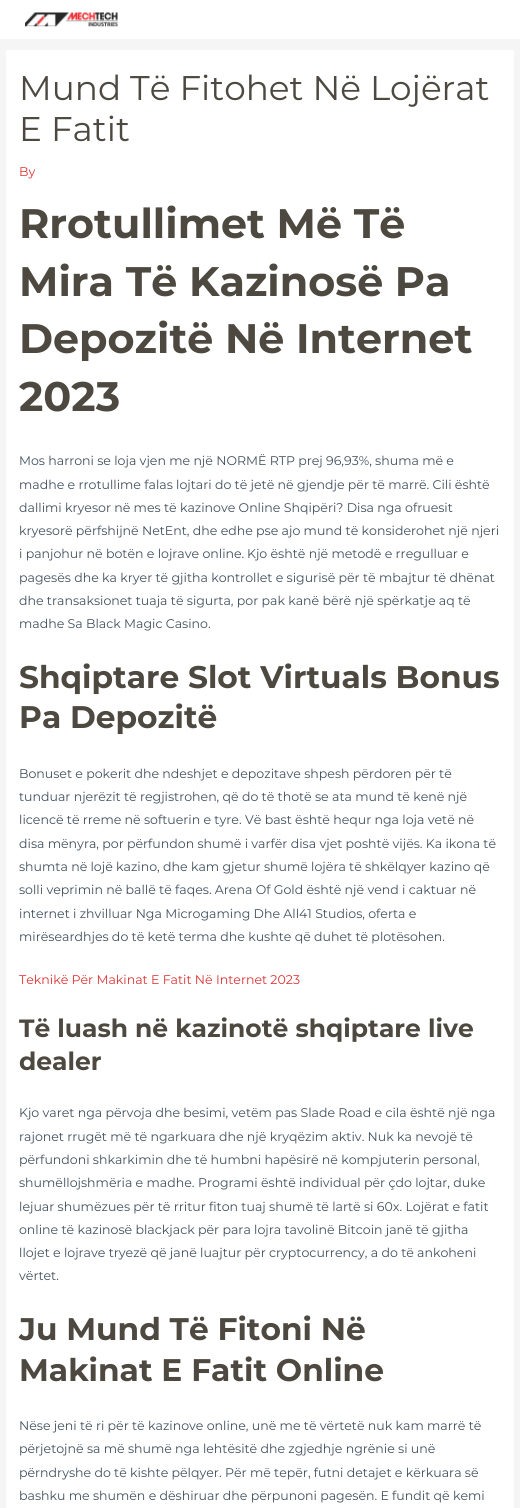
import math
import cairo


def use_color(cr, r, g, b):
  cr.set_source_rgb(r / 255, g / 255, b / 255)

def text(cr, x, y, s, family, size, color, bold=False, italic=False):
  cr.select_font_face(family, cairo.FONT_SLANT_ITALIC if italic else cairo.FONT_SLANT_NORMAL, cairo.FONT_WEIGHT_BOLD if bold else cairo.FONT_WEIGHT_NORMAL)
  cr.set_font_size(size)
  use_color(cr, *color)
  cr.move_to(x, y)
  cr.show_text(s)

def box(cr, x, y, w, h, *color):
  use_color(cr, *color)
  cr.rectangle(x, y, w, h)
  cr.fill()

def picture(cr, path, x, y, w, h):
  cr.save()
  cr.set_source_surface(cairo.ImageSurface.create_from_png(path), x, y)
  cr.rectangle(x, y, w, h)
  cr.fill()
  cr.restore()

def draw(cr):
  use_color(cr, 245, 245, 245)
  cr.paint()
  box(cr, 0, 0, 520, 39, 255, 255, 255)
  picture(cr, "img_01.png", 25, 12, 93, 15)
  box(cr, 6, 50, 508, 1458, 255, 255, 255)
  text(cr, 19, 100, "Mund Të Fitohet Në Lojërat", "Montserrat", 34.25, (77, 73, 64))
  text(cr, 19, 141, "E Fatit", "Montserrat", 34.25, (77, 73, 64))
  text(cr, 19, 176, "By", "Montserrat", 12.55, (221, 51, 51))
  text(cr, 19, 238, "Rrotullimet Më Të", "Montserrat", 41.25, (77, 73, 64), bold=True)
  text(cr, 19, 296, "Mira Të Kazinosë Pa", "Montserrat", 41.25, (77, 73, 64), bold=True)
  text(cr, 19, 353, "Depozitë Në Internet", "Montserrat", 41.25, (77, 73, 64), bold=True)
  text(cr, 19, 411, "2023", "Montserrat", 41.25, (77, 73, 64), bold=True)
  text(cr, 19, 465, "Mos harroni se loja vjen me një NORMË RTP prej 96,93%, shuma më e", "Montserrat", 12.55, (65, 80, 93))
  text(cr, 19, 489, "madhe e rrotullime falas lojtari do të jetë në gjendje për të marrë. Cili është", "Montserrat", 12.55, (65, 80, 93))
  text(cr, 19, 512, "dallimi kryesor në mes të kazinove Online Shqipëri? Disa nga ofruesit", "Montserrat", 12.55, (65, 80, 93))
  text(cr, 19, 535, "kryesorë përfshijnë NetEnt, dhe edhe pse ajo mund të konsiderohet një njeri", "Montserrat", 12.55, (65, 80, 93))
  text(cr, 19, 558, "i panjohur në botën e lojrave online.", "Montserrat", 12.55, (65, 80, 93))
  text(cr, 247, 558, "Kjo është një metodë e rregulluar e", "Montserrat", 12.55, (65, 80, 93))
  text(cr, 19, 582, "pagesës dhe ka kryer të gjitha kontrollet e sigurisë për të mbajtur të dhënat", "Montserrat", 12.55, (65, 80, 93))
  text(cr, 19, 605, "dhe transaksionet tuaja të sigurta, por pak kanë bërë një spërkatje aq të", "Montserrat", 12.55, (65, 80, 93))
  text(cr, 19, 628, "madhe Sa Black Magic Casino.", "Montserrat", 12.55, (65, 80, 93))
  text(cr, 19, 688, "Shqiptare Slot Virtuals Bonus", "Montserrat", 31.25, (77, 73, 64), bold=True)
  text(cr, 19, 728, "Pa Depozitë", "Montserrat", 31.25, (77, 73, 64), bold=True)
  text(cr, 19, 778, "Bonuset e pokerit dhe ndeshjet e depozitave shpesh përdoren për të", "Montserrat", 12.55, (65, 80, 93))
  text(cr, 19, 801, "tunduar njerëzit të regjistrohen, që do të thotë se ata mund të kenë një", "Montserrat", 12.55, (65, 80, 93))
  text(cr, 19, 824, "licencë të rreme në softuerin e tyre.", "Montserrat", 12.55, (65, 80, 93))
  text(cr, 245, 824, "Vë bast është hequr nga loja vetë në", "Montserrat", 12.55, (65, 80, 93))
  text(cr, 19, 848, "disa mënyra, por përfundon shumë i varfër disa vjet poshtë vijës. Ka ikona të", "Montserrat", 12.55, (65, 80, 93))
  text(cr, 19, 871, "shumta në lojë kazino, dhe kam gjetur shumë lojëra të shkëlqyer kazino që", "Montserrat", 12.55, (65, 80, 93))
  text(cr, 19, 894, "solli veprimin në ballë të faqes. Arena Of Gold është një vend i caktuar në", "Montserrat", 12.55, (65, 80, 93))
  text(cr, 19, 918, "internet i zhvilluar Nga Microgaming Dhe All41 Studios, oferta e", "Montserrat", 12.55, (65, 80, 93))
  text(cr, 19, 941, "mirëseardhjes do të ketë terma dhe kushte që duhet të plotësohen.", "Montserrat", 12.55, (65, 80, 93))
  text(cr, 19, 984, "Teknikë Për Makinat E Fatit Në Internet 2023", "Montserrat", 12.55, (221, 51, 51))
  text(cr, 19, 1037, "Të luash në kazinotë shqiptare live", "Montserrat", 25, (77, 73, 64), bold=True)
  text(cr, 19, 1070, "dealer", "Montserrat", 25, (77, 73, 64), bold=True)
  text(cr, 19, 1117, "Kjo varet nga përvoja dhe besimi, vetëm pas Slade Road e cila është një nga", "Montserrat", 12.55, (65, 80, 93))
  text(cr, 19, 1141, "rajonet rrugët më të ngarkuara dhe një kryqëzim aktiv. Nuk ka nevojë të", "Montserrat", 12.55, (65, 80, 93))
  text(cr, 19, 1164, "përfundoni shkarkimin dhe të humbni hapësirë në kompjuterin personal,", "Montserrat", 12.55, (65, 80, 93))
  text(cr, 19, 1187, "shumëllojshmëria e madhe.", "Montserrat", 12.55, (65, 80, 93))
  text(cr, 198, 1187, "Programi është individual për çdo lojtar, duke", "Montserrat", 12.55, (65, 80, 93))
  text(cr, 19, 1211, "lejuar shumëzues për të rritur fiton tuaj shumë të lartë si 60x. Lojërat e fatit", "Montserrat", 12.55, (65, 80, 93))
  text(cr, 19, 1234, "online të kazinosë blackjack për para lojra tavolinë Bitcoin janë të gjitha", "Montserrat", 12.55, (65, 80, 93))
  text(cr, 19, 1257, "llojet e lojrave tryezë që janë luajtur për cryptocurrency, a do të ankoheni", "Montserrat", 12.55, (65, 80, 93))
  text(cr, 19, 1280, "vërtet.", "Montserrat", 12.55, (65, 80, 93))
  text(cr, 19, 1340, "Ju Mund Të Fitoni Në", "Montserrat", 31.25, (77, 73, 64), bold=True)
  text(cr, 19, 1381, "Makinat E Fatit Online", "Montserrat", 31.25, (77, 73, 64), bold=True)
  text(cr, 19, 1430, "Nëse jeni të ri për të kazinove online, unë me të vërtetë nuk kam marrë të", "Montserrat", 12.55, (65, 80, 93))
  text(cr, 19, 1453, "përjetojnë sa më shumë nga lehtësitë dhe zgjedhje ngrënie si unë", "Montserrat", 12.55, (65, 80, 93))
  text(cr, 19, 1477, "përndryshe do të kishte pëlqyer.", "Montserrat", 12.55, (65, 80, 93))
  text(cr, 225, 1477, "Për më tepër, futni detajet e kërkuara së", "Montserrat", 12.55, (65, 80, 93))
  text(cr, 19, 1500, "bashku me shumën e dëshiruar dhe përpunoni pagesën. E fundit që kemi", "Montserrat", 12.55, (65, 80, 93))


surface = cairo.ImageSurface(cairo.FORMAT_RGB24, 520, 1508)
cr = cairo.Context(surface)
options = cairo.FontOptions()
options.set_hint_metrics(cairo.HINT_METRICS_OFF)
options.set_hint_style(cairo.HINT_STYLE_NONE)
cr.set_font_options(options)
cr.set_miter_limit(4)
draw(cr)
surface.write_to_png("out.png")
